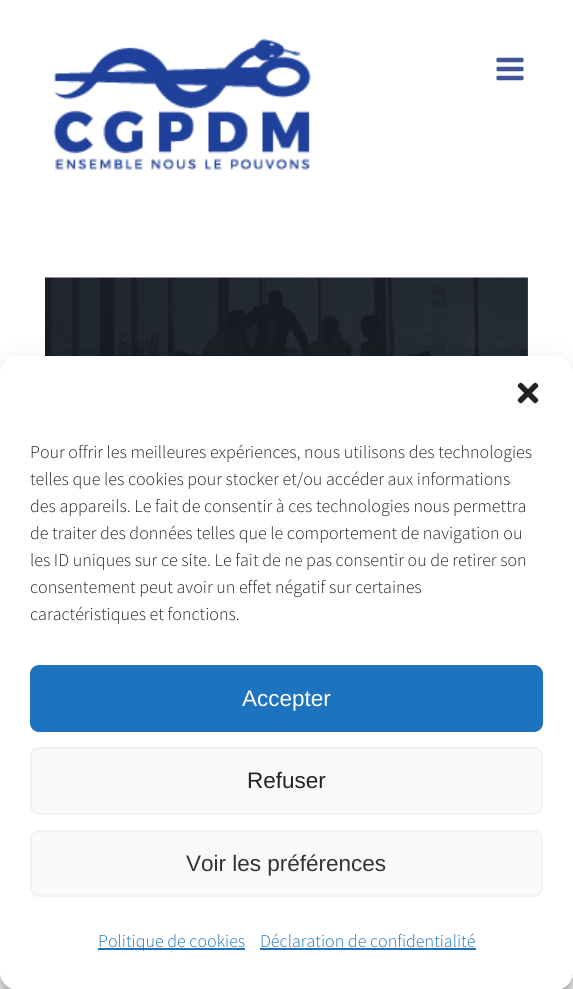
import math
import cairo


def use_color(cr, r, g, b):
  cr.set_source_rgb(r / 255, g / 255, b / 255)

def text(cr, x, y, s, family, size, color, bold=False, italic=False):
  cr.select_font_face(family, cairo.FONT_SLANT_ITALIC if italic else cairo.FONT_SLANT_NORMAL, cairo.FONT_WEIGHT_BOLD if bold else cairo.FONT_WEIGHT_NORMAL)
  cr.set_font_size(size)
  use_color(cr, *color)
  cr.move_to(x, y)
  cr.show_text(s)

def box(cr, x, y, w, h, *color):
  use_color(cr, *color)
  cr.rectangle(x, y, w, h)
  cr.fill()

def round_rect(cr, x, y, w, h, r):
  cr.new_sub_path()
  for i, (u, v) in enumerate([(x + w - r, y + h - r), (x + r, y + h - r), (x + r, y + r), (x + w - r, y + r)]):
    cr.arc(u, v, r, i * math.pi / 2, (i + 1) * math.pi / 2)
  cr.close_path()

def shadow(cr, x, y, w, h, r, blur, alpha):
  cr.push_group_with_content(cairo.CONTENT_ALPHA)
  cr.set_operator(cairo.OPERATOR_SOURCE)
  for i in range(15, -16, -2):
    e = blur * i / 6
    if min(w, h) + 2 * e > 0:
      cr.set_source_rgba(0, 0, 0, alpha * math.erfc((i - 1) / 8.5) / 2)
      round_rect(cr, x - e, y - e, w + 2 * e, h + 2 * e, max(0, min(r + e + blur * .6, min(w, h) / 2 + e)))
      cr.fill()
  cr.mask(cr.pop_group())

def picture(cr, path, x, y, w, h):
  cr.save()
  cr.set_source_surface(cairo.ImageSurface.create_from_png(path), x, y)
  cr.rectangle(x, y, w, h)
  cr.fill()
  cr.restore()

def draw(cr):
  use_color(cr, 255, 255, 255)
  cr.paint()
  picture(cr, "img_01.png", 53, 38, 258, 132)
  picture(cr, "img_02.png", 496, 57, 28, 24)
  picture(cr, "img_03.png", 45, 277, 483, 79)
  use_color(cr, 0, 0, 0)
  shadow(cr, 0, 365, 573, 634, 18, 4.5, 0.23)
  shadow(cr, 0, 371, 573, 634, 18, 15, 0.19)
  use_color(cr, 128, 128, 128)
  shadow(cr, 468, 879, 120, 90, 3, 4, 1)
  use_color(cr, 255, 255, 255)
  round_rect(cr, 0, 356, 573, 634, 18)
  cr.fill()
  picture(cr, "img_04.png", 517, 382, 22, 22)
  use_color(cr, 30, 115, 190)
  round_rect(cr, 31, 666, 511, 65, 8)
  cr.fill_preserve()
  cr.stroke()
  use_color(cr, 249, 249, 249)
  round_rect(cr, 31, 748, 511, 66, 8)
  cr.fill_preserve()
  use_color(cr, 242, 242, 242)
  cr.stroke()
  use_color(cr, 249, 249, 249)
  round_rect(cr, 31, 831, 511, 65, 8)
  cr.fill_preserve()
  use_color(cr, 242, 242, 242)
  cr.stroke()
  box(cr, 98, 948, 147, 2, 30, 115, 190)
  box(cr, 260, 948, 216, 2, 30, 115, 190)
  text(cr, 30, 458, "Pour offrir les meilleures expériences, nous utilisons des technologies", "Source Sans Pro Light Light", 18, (34, 34, 34))
  text(cr, 30, 485, "telles que les cookies pour stocker et/ou accéder aux informations", "Source Sans Pro Light Light", 18, (34, 34, 34))
  text(cr, 30, 512, "des appareils. Le fait de consentir à ces technologies nous permettra", "Source Sans Pro Light Light", 18, (34, 34, 34))
  text(cr, 30, 539, "de traiter des données telles que le comportement de navigation ou", "Source Sans Pro Light Light", 18, (34, 34, 34))
  text(cr, 30, 566, "les ID uniques sur ce site. Le fait de ne pas consentir ou de retirer son", "Source Sans Pro Light Light", 18, (34, 34, 34))
  text(cr, 30, 593, "consentement peut avoir un effet négatif sur certaines", "Source Sans Pro Light Light", 18, (34, 34, 34))
  text(cr, 30, 620, "caractéristiques et fonctions.", "Source Sans Pro Light Light", 18, (34, 34, 34))
  text(cr, 242, 706, "Accepter", "Liberation Sans", 22.5, (255, 255, 255))
  text(cr, 247, 788, "Refuser", "Liberation Sans", 22.5, (34, 34, 34))
  text(cr, 186, 871, "Voir les préférences", "Liberation Sans", 22.5, (51, 51, 51))
  text(cr, 98, 947, "Politique de cookies", "Source Sans Pro Light Light", 18, (30, 115, 190))
  text(cr, 260, 947, "Déclaration de confidentialité", "Source Sans Pro Light Light", 18, (30, 115, 190))


surface = cairo.ImageSurface(cairo.FORMAT_RGB24, 573, 989)
cr = cairo.Context(surface)
options = cairo.FontOptions()
options.set_hint_metrics(cairo.HINT_METRICS_OFF)
options.set_hint_style(cairo.HINT_STYLE_NONE)
cr.set_font_options(options)
cr.set_miter_limit(4)
draw(cr)
surface.write_to_png("out.png")
